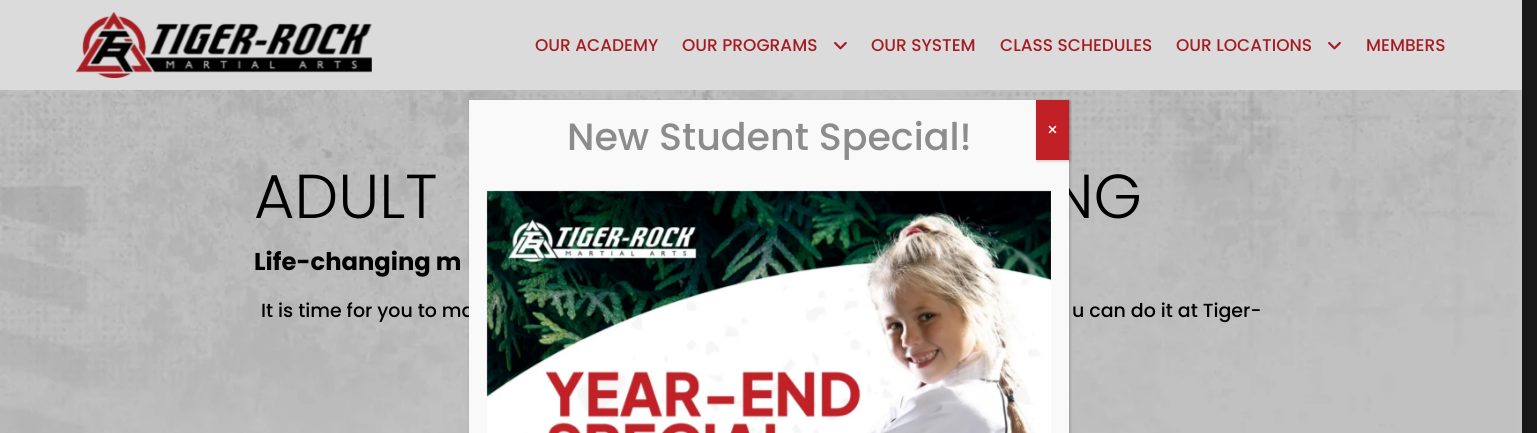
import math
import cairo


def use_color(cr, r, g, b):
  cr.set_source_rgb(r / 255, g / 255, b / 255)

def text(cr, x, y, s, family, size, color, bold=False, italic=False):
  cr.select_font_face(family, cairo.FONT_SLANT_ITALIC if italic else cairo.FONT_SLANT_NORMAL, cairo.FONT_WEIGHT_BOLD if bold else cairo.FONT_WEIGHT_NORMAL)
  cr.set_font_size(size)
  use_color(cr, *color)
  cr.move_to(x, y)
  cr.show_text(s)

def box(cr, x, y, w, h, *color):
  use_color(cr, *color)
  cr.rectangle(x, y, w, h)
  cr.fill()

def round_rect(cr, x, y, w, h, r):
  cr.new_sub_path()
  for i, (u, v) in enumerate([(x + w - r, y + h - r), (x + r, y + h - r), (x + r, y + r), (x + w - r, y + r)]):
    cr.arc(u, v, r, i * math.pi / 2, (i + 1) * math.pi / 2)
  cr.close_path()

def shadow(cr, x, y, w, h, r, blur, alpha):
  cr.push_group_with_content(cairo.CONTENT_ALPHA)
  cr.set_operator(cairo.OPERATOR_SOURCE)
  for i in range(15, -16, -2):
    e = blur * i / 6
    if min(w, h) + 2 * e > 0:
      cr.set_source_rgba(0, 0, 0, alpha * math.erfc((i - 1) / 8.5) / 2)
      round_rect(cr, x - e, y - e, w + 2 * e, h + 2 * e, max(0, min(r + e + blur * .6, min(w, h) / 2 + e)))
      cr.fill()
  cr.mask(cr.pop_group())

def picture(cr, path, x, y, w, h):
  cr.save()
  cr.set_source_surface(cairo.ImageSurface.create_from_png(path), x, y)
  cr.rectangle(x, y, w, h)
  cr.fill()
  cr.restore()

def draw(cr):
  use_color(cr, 24, 24, 24)
  cr.paint()
  box(cr, 0, 0, 1522, 90, 219, 219, 219)
  picture(cr, "img_01.png", 76, 12, 296, 66)
  picture(cr, "img_02.png", 834, 42, 13, 8)
  picture(cr, "img_02.png", 1328, 42, 13, 8)
  picture(cr, "img_03.png", 0, 90, 1518, 343)
  box(cr, 1518, 90, 4, 343, 194, 194, 194)
  use_color(cr, 2, 2, 2)
  shadow(cr, 470, 101, 600, 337, 0, 1.5, 0.23)
  text(cr, 535, 51, "OUR ACADEMY", "Poppins Medium", 17, (166, 28, 34))
  text(cr, 682, 51, "OUR PROGRAMS", "Poppins Medium", 17, (166, 28, 34))
  text(cr, 871, 51, "OUR SYSTEM", "Poppins Medium", 17, (166, 28, 34))
  text(cr, 1000, 51, "CLASS SCHEDULES", "Poppins Medium", 17, (166, 28, 34))
  text(cr, 1176, 51, "OUR LOCATIONS", "Poppins Medium", 17, (166, 28, 34))
  text(cr, 1366, 51, "MEMBERS", "Poppins Medium", 17, (166, 28, 34))
  text(cr, 254, 218, "ADULT", "Poppins Light", 62, (0, 0, 0))
  text(cr, 1051, 218, "NG", "Poppins Light", 62, (0, 0, 0))
  text(cr, 254, 270, "Life-changing m", "Poppins", 24.25, (0, 0, 0), bold=True)
  text(cr, 261, 317, "It is time for you to ma", "Poppins Medium", 19, (0, 0, 0))
  text(cr, 1072, 317, "u can do it at Tiger-", "Poppins Medium", 19, (0, 0, 0))
  box(cr, 469, 100, 600, 333, 249, 249, 249)
  text(cr, 567, 150, "New Student Special!", "Poppins Medium", 38, (140, 140, 140))
  picture(cr, "img_04.png", 486, 190, 565, 243)
  use_color(cr, 2, 2, 2)
  shadow(cr, 1037, 101, 33, 60, 0, 1.5, 0.23)
  box(cr, 1036, 100, 33, 60, 193, 32, 39)
  picture(cr, "img_05.png", 1048, 125, 9, 9)


surface = cairo.ImageSurface(cairo.FORMAT_RGB24, 1537, 433)
cr = cairo.Context(surface)
options = cairo.FontOptions()
options.set_hint_metrics(cairo.HINT_METRICS_OFF)
options.set_hint_style(cairo.HINT_STYLE_NONE)
cr.set_font_options(options)
cr.set_miter_limit(4)
draw(cr)
surface.write_to_png("out.png")
